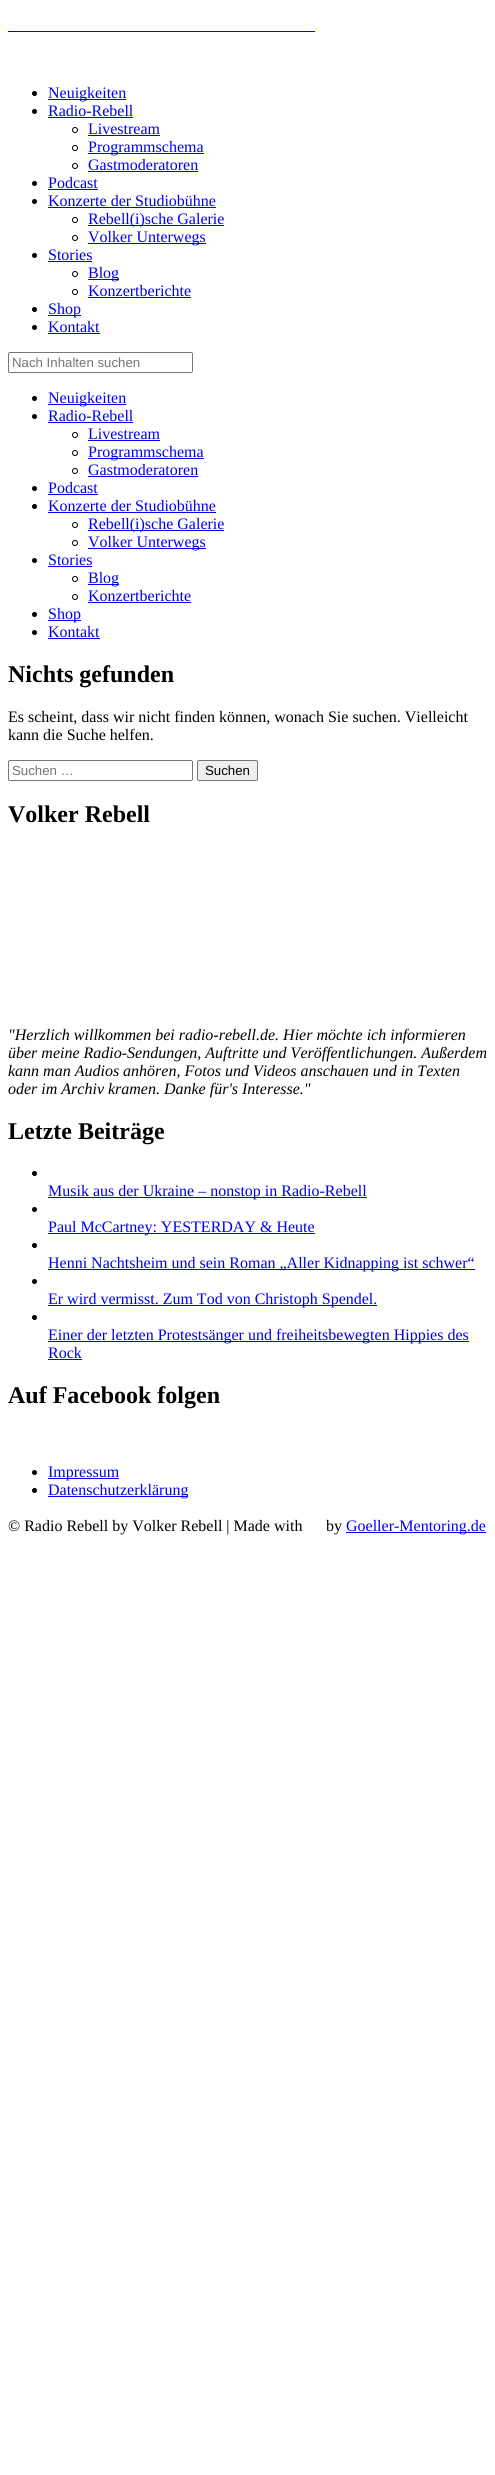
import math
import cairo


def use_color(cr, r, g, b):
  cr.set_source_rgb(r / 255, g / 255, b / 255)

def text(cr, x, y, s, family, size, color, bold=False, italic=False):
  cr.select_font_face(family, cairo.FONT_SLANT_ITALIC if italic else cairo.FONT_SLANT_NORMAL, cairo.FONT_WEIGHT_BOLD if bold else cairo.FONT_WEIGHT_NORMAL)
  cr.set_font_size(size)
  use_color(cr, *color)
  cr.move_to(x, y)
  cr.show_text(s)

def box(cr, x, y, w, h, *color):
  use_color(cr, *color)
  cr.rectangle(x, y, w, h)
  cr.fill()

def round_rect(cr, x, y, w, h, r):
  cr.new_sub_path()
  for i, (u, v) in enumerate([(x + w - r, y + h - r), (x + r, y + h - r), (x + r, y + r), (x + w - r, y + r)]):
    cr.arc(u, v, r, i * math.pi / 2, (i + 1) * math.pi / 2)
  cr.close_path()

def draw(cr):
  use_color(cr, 255, 255, 255)
  cr.paint()
  box(cr, 8, 31, 307, 1, 0, 0, 238)
  use_color(cr, 0, 0, 0)
  cr.arc(34.5, 93.5, 2.5, 0, 2 * math.pi)
  cr.fill()
  box(cr, 48, 99, 78, 1, 0, 0, 238)
  use_color(cr, 0, 0, 0)
  cr.arc(34.5, 111.5, 2.5, 0, 2 * math.pi)
  cr.fill()
  box(cr, 48, 117, 85, 1, 0, 0, 238)
  cr.arc(75, 130, 2.5, 0, 2 * math.pi)
  use_color(cr, 0, 0, 0)
  cr.set_line_width(1)
  cr.stroke()
  box(cr, 88, 135, 72, 1, 0, 0, 238)
  cr.arc(75, 148, 2.5, 0, 2 * math.pi)
  use_color(cr, 0, 0, 0)
  cr.stroke()
  box(cr, 88, 153, 116, 1, 0, 0, 238)
  cr.arc(75, 166, 2.5, 0, 2 * math.pi)
  use_color(cr, 0, 0, 0)
  cr.stroke()
  box(cr, 88, 171, 110, 1, 0, 0, 238)
  use_color(cr, 0, 0, 0)
  cr.arc(34.5, 183.5, 2.5, 0, 2 * math.pi)
  cr.fill()
  box(cr, 48, 189, 50, 1, 0, 0, 238)
  use_color(cr, 0, 0, 0)
  cr.arc(34.5, 201.5, 2.5, 0, 2 * math.pi)
  cr.fill()
  box(cr, 48, 207, 168, 1, 0, 0, 238)
  cr.arc(75, 220, 2.5, 0, 2 * math.pi)
  use_color(cr, 0, 0, 0)
  cr.stroke()
  box(cr, 88, 225, 136, 1, 0, 0, 238)
  cr.arc(75, 238, 2.5, 0, 2 * math.pi)
  use_color(cr, 0, 0, 0)
  cr.stroke()
  box(cr, 88, 243, 118, 1, 0, 0, 238)
  use_color(cr, 0, 0, 0)
  cr.arc(34.5, 255.5, 2.5, 0, 2 * math.pi)
  cr.fill()
  box(cr, 48, 261, 44, 1, 0, 0, 238)
  cr.arc(75, 274, 2.5, 0, 2 * math.pi)
  use_color(cr, 0, 0, 0)
  cr.stroke()
  box(cr, 88, 279, 31, 1, 0, 0, 238)
  cr.arc(75, 292, 2.5, 0, 2 * math.pi)
  use_color(cr, 0, 0, 0)
  cr.stroke()
  box(cr, 88, 297, 103, 1, 0, 0, 238)
  use_color(cr, 0, 0, 0)
  cr.arc(34.5, 309.5, 2.5, 0, 2 * math.pi)
  cr.fill()
  box(cr, 48, 315, 33, 1, 0, 0, 238)
  use_color(cr, 0, 0, 0)
  cr.arc(34.5, 327.5, 2.5, 0, 2 * math.pi)
  cr.fill()
  box(cr, 48, 333, 52, 1, 0, 0, 238)
  round_rect(cr, 8.5, 352.5, 184, 20, 1.5)
  use_color(cr, 118, 118, 118)
  cr.stroke()
  use_color(cr, 0, 0, 0)
  cr.arc(34.5, 398.5, 2.5, 0, 2 * math.pi)
  cr.fill()
  box(cr, 48, 404, 78, 1, 0, 0, 238)
  use_color(cr, 0, 0, 0)
  cr.arc(34.5, 416.5, 2.5, 0, 2 * math.pi)
  cr.fill()
  box(cr, 48, 422, 85, 1, 0, 0, 238)
  cr.arc(75, 435, 2.5, 0, 2 * math.pi)
  use_color(cr, 0, 0, 0)
  cr.stroke()
  box(cr, 88, 440, 72, 1, 0, 0, 238)
  cr.arc(75, 453, 2.5, 0, 2 * math.pi)
  use_color(cr, 0, 0, 0)
  cr.stroke()
  box(cr, 88, 458, 116, 1, 0, 0, 238)
  cr.arc(75, 471, 2.5, 0, 2 * math.pi)
  use_color(cr, 0, 0, 0)
  cr.stroke()
  box(cr, 88, 476, 110, 1, 0, 0, 238)
  use_color(cr, 0, 0, 0)
  cr.arc(34.5, 488.5, 2.5, 0, 2 * math.pi)
  cr.fill()
  box(cr, 48, 494, 50, 1, 0, 0, 238)
  use_color(cr, 0, 0, 0)
  cr.arc(34.5, 506.5, 2.5, 0, 2 * math.pi)
  cr.fill()
  box(cr, 48, 512, 168, 1, 0, 0, 238)
  cr.arc(75, 525, 2.5, 0, 2 * math.pi)
  use_color(cr, 0, 0, 0)
  cr.stroke()
  box(cr, 88, 530, 136, 1, 0, 0, 238)
  cr.arc(75, 543, 2.5, 0, 2 * math.pi)
  use_color(cr, 0, 0, 0)
  cr.stroke()
  box(cr, 88, 548, 118, 1, 0, 0, 238)
  use_color(cr, 0, 0, 0)
  cr.arc(34.5, 560.5, 2.5, 0, 2 * math.pi)
  cr.fill()
  box(cr, 48, 566, 44, 1, 0, 0, 238)
  cr.arc(75, 579, 2.5, 0, 2 * math.pi)
  use_color(cr, 0, 0, 0)
  cr.stroke()
  box(cr, 88, 584, 31, 1, 0, 0, 238)
  cr.arc(75, 597, 2.5, 0, 2 * math.pi)
  use_color(cr, 0, 0, 0)
  cr.stroke()
  box(cr, 88, 602, 103, 1, 0, 0, 238)
  use_color(cr, 0, 0, 0)
  cr.arc(34.5, 614.5, 2.5, 0, 2 * math.pi)
  cr.fill()
  box(cr, 48, 620, 33, 1, 0, 0, 238)
  use_color(cr, 0, 0, 0)
  cr.arc(34.5, 632.5, 2.5, 0, 2 * math.pi)
  cr.fill()
  box(cr, 48, 638, 52, 1, 0, 0, 238)
  round_rect(cr, 8.5, 760.5, 184, 20, 1.5)
  use_color(cr, 118, 118, 118)
  cr.stroke()
  use_color(cr, 239, 239, 239)
  round_rect(cr, 197.5, 760.5, 60, 20, 1.5)
  cr.fill_preserve()
  use_color(cr, 118, 118, 118)
  cr.stroke()
  use_color(cr, 0, 0, 0)
  cr.arc(34.5, 1173.5, 2.5, 0, 2 * math.pi)
  cr.fill()
  box(cr, 48, 1197, 319, 1, 0, 0, 238)
  use_color(cr, 0, 0, 0)
  cr.arc(34.5, 1209.5, 2.5, 0, 2 * math.pi)
  cr.fill()
  box(cr, 48, 1233, 267, 1, 0, 0, 238)
  use_color(cr, 0, 0, 0)
  cr.arc(34.5, 1245.5, 2.5, 0, 2 * math.pi)
  cr.fill()
  box(cr, 48, 1269, 427, 1, 0, 0, 238)
  use_color(cr, 0, 0, 0)
  cr.arc(34.5, 1281.5, 2.5, 0, 2 * math.pi)
  cr.fill()
  box(cr, 48, 1305, 329, 1, 0, 0, 238)
  use_color(cr, 0, 0, 0)
  cr.arc(34.5, 1317.5, 2.5, 0, 2 * math.pi)
  cr.fill()
  box(cr, 48, 1341, 421, 1, 0, 0, 238)
  box(cr, 48, 1359, 34, 1, 0, 0, 238)
  use_color(cr, 0, 0, 0)
  cr.arc(34.5, 1472.5, 2.5, 0, 2 * math.pi)
  cr.fill()
  box(cr, 48, 1478, 71, 1, 0, 0, 238)
  use_color(cr, 0, 0, 0)
  cr.arc(34.5, 1490.5, 2.5, 0, 2 * math.pi)
  cr.fill()
  box(cr, 48, 1496, 140, 1, 0, 0, 238)
  box(cr, 346, 1532, 140, 1, 0, 0, 238)
  text(cr, 48, 98, "Neuigkeiten", "Liberation Serif", 16, (0, 0, 238))
  text(cr, 48, 116, "Radio-Rebell", "Liberation Serif", 16, (0, 0, 238))
  text(cr, 88, 134, "Livestream", "Liberation Serif", 16, (0, 0, 238))
  text(cr, 88, 152, "Programmschema", "Liberation Serif", 16, (0, 0, 238))
  text(cr, 88, 170, "Gastmoderatoren", "Liberation Serif", 16, (0, 0, 238))
  text(cr, 48, 188, "Podcast", "Liberation Serif", 16, (0, 0, 238))
  text(cr, 48, 206, "Konzerte der Studiobühne", "Liberation Serif", 16, (0, 0, 238))
  text(cr, 88, 224, "Rebell(i)sche Galerie", "Liberation Serif", 16, (0, 0, 238))
  text(cr, 88, 242, "Volker Unterwegs", "Liberation Serif", 16, (0, 0, 238))
  text(cr, 48, 260, "Stories", "Liberation Serif", 16, (0, 0, 238))
  text(cr, 88, 278, "Blog", "Liberation Serif", 16, (0, 0, 238))
  text(cr, 88, 296, "Konzertberichte", "Liberation Serif", 16, (0, 0, 238))
  text(cr, 48, 314, "Shop", "Liberation Serif", 16, (0, 0, 238))
  text(cr, 48, 332, "Kontakt", "Liberation Serif", 16, (0, 0, 238))
  text(cr, 12, 367, "Nach Inhalten suchen", "Liberation Sans", 13.25, (117, 117, 117))
  text(cr, 48, 403, "Neuigkeiten", "Liberation Serif", 16, (0, 0, 238))
  text(cr, 48, 421, "Radio-Rebell", "Liberation Serif", 16, (0, 0, 238))
  text(cr, 88, 439, "Livestream", "Liberation Serif", 16, (0, 0, 238))
  text(cr, 88, 457, "Programmschema", "Liberation Serif", 16, (0, 0, 238))
  text(cr, 88, 475, "Gastmoderatoren", "Liberation Serif", 16, (0, 0, 238))
  text(cr, 48, 493, "Podcast", "Liberation Serif", 16, (0, 0, 238))
  text(cr, 48, 511, "Konzerte der Studiobühne", "Liberation Serif", 16, (0, 0, 238))
  text(cr, 88, 529, "Rebell(i)sche Galerie", "Liberation Serif", 16, (0, 0, 238))
  text(cr, 88, 547, "Volker Unterwegs", "Liberation Serif", 16, (0, 0, 238))
  text(cr, 48, 565, "Stories", "Liberation Serif", 16, (0, 0, 238))
  text(cr, 88, 583, "Blog", "Liberation Serif", 16, (0, 0, 238))
  text(cr, 88, 601, "Konzertberichte", "Liberation Serif", 16, (0, 0, 238))
  text(cr, 48, 619, "Shop", "Liberation Serif", 16, (0, 0, 238))
  text(cr, 48, 637, "Kontakt", "Liberation Serif", 16, (0, 0, 238))
  text(cr, 8, 682, "Nichts gefunden", "Liberation Serif", 24, (0, 0, 0), bold=True)
  text(cr, 8, 722, "Es scheint, dass wir nicht finden können, wonach Sie suchen. Vielleicht", "Liberation Serif", 16, (0, 0, 0))
  text(cr, 8, 740, "kann die Suche helfen.", "Liberation Serif", 16, (0, 0, 0))
  text(cr, 12, 775, "Suchen …", "Liberation Sans", 13.25, (117, 117, 117))
  text(cr, 205, 775, "Suchen", "Liberation Sans", 13.25, (0, 0, 0))
  text(cr, 8, 822, "Volker Rebell", "Liberation Serif", 24, (0, 0, 0), bold=True)
  text(cr, 8, 1040, "\"Herzlich willkommen bei radio-rebell.de. Hier möchte ich informieren", "Liberation Serif", 16, (0, 0, 0), italic=True)
  text(cr, 8, 1058, "über meine Radio-Sendungen, Auftritte und Veröffentlichungen. Außerdem", "Liberation Serif", 16, (0, 0, 0), italic=True)
  text(cr, 8, 1076, "kann man Audios anhören, Fotos und Videos anschauen und in Texten", "Liberation Serif", 16, (0, 0, 0), italic=True)
  text(cr, 8, 1094, "oder im Archiv kramen. Danke für's Interesse.\"", "Liberation Serif", 16, (0, 0, 0), italic=True)
  text(cr, 8, 1139, "Letzte Beiträge", "Liberation Serif", 24, (0, 0, 0), bold=True)
  text(cr, 48, 1196, "Musik aus der Ukraine – nonstop in Radio-Rebell", "Liberation Serif", 16, (0, 0, 238))
  text(cr, 48, 1232, "Paul McCartney: YESTERDAY & Heute", "Liberation Serif", 16, (0, 0, 238))
  text(cr, 48, 1268, "Henni Nachtsheim und sein Roman „Aller Kidnapping ist schwer“", "Liberation Serif", 16, (0, 0, 238))
  text(cr, 48, 1304, "Er wird vermisst. Zum Tod von Christoph Spendel.", "Liberation Serif", 16, (0, 0, 238))
  text(cr, 48, 1340, "Einer der letzten Protestsänger und freiheitsbewegten Hippies des", "Liberation Serif", 16, (0, 0, 238))
  text(cr, 48, 1358, "Rock", "Liberation Serif", 16, (0, 0, 238))
  text(cr, 8, 1403, "Auf Facebook folgen", "Liberation Serif", 24, (0, 0, 0), bold=True)
  text(cr, 48, 1477, "Impressum", "Liberation Serif", 16, (0, 0, 238))
  text(cr, 48, 1495, "Datenschutzerklärung", "Liberation Serif", 16, (0, 0, 238))
  text(cr, 8, 1531, "© Radio Rebell by Volker Rebell | Made with", "Liberation Serif", 16, (0, 0, 0))
  text(cr, 326, 1531, "by", "Liberation Serif", 16, (0, 0, 0))
  text(cr, 346, 1531, "Goeller-Mentoring.de", "Liberation Serif", 16, (0, 0, 238))


surface = cairo.ImageSurface(cairo.FORMAT_RGB24, 495, 2475)
cr = cairo.Context(surface)
options = cairo.FontOptions()
options.set_hint_metrics(cairo.HINT_METRICS_OFF)
options.set_hint_style(cairo.HINT_STYLE_NONE)
cr.set_font_options(options)
cr.set_miter_limit(4)
draw(cr)
surface.write_to_png("out.png")
